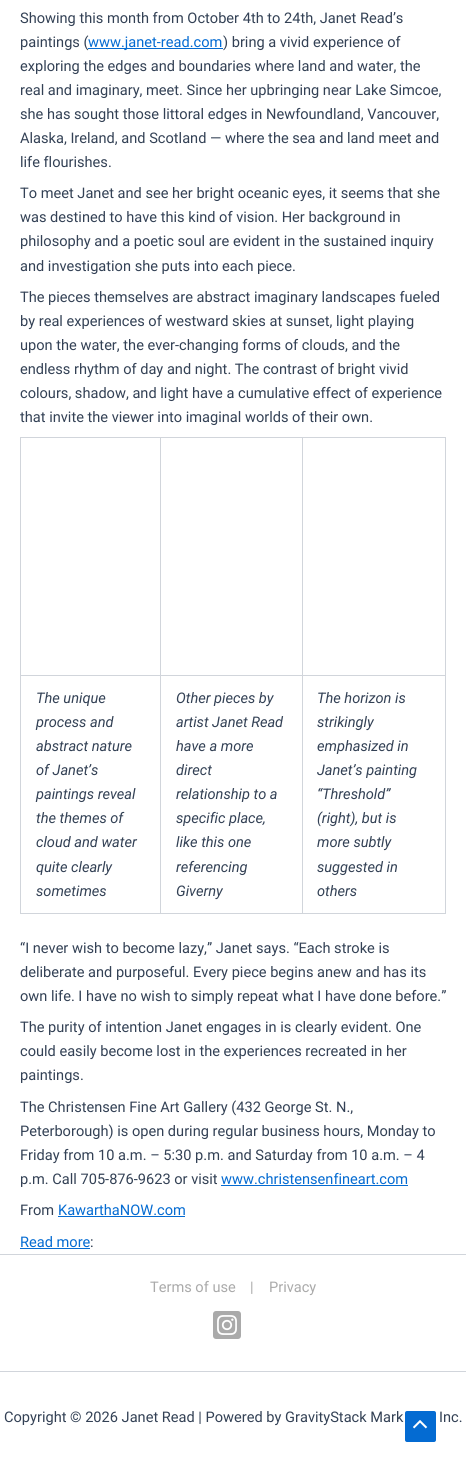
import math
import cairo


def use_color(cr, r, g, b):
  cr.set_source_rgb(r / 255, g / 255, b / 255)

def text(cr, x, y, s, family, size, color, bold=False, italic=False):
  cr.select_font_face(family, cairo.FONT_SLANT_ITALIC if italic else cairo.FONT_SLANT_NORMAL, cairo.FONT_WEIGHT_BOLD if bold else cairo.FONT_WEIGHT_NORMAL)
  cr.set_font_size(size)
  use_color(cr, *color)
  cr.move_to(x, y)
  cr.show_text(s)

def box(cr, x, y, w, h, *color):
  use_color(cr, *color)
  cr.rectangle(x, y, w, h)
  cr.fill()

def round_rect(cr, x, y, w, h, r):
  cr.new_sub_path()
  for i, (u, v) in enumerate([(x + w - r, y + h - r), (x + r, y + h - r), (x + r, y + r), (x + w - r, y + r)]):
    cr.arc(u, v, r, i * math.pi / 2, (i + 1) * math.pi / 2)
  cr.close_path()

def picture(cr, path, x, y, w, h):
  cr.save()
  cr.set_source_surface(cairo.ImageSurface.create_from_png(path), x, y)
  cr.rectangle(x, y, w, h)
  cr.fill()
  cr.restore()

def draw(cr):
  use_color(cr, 255, 255, 255)
  cr.paint()
  box(cr, 20, 437, 426, 1, 209, 213, 219)
  box(cr, 20, 437, 1, 477, 209, 213, 219)
  box(cr, 160, 438, 1, 476, 209, 213, 219)
  box(cr, 21, 675, 140, 1, 209, 213, 219)
  box(cr, 302, 438, 1, 476, 209, 213, 219)
  box(cr, 161, 675, 142, 1, 209, 213, 219)
  box(cr, 445, 438, 1, 476, 209, 213, 219)
  box(cr, 303, 675, 143, 1, 209, 213, 219)
  box(cr, 21, 913, 425, 1, 209, 213, 219)
  box(cr, 221, 1185, 187, 1, 4, 107, 210)
  box(cr, 58, 1216, 127, 1, 4, 107, 210)
  box(cr, 20, 1248, 70, 1, 4, 107, 210)
  box(cr, 0, 1254, 466, 1, 209, 213, 219)
  picture(cr, "img_01.png", 213, 1311, 28, 28)
  box(cr, 0, 1371, 466, 1, 209, 213, 219)
  use_color(cr, 4, 107, 210)
  round_rect(cr, 405, 1411, 31, 31, 2)
  cr.fill()
  picture(cr, "img_02.png", 413, 1420, 15, 9)
  text(cr, 20, 23, "Showing this month from October 4th to 24th, Janet Read’s", "Roboto", 14.6, (51, 65, 85))
  text(cr, 20, 47, "paintings (", "Roboto", 14.6, (51, 65, 85))
  box(cr, 88, 48, 135, 1, 4, 107, 210)
  text(cr, 88, 47, "www.janet-read.com", "Roboto", 14.6, (4, 107, 210))
  text(cr, 223, 47, ") bring a vivid experience of", "Roboto", 14.6, (51, 65, 85))
  text(cr, 20, 71, "exploring the edges and boundaries where land and water, the", "Roboto", 14.6, (51, 65, 85))
  text(cr, 20, 95, "real and imaginary, meet. Since her upbringing near Lake Simcoe,", "Roboto", 14.6, (51, 65, 85))
  text(cr, 20, 119, "she has sought those littoral edges in Newfoundland, Vancouver,", "Roboto", 14.6, (51, 65, 85))
  text(cr, 20, 143, "Alaska, Ireland, and Scotland — where the sea and land meet and", "Roboto", 14.6, (51, 65, 85))
  text(cr, 20, 167, "life flourishes.", "Roboto", 14.6, (51, 65, 85))
  text(cr, 20, 198, "To meet Janet and see her bright oceanic eyes, it seems that she", "Roboto", 14.6, (51, 65, 85))
  text(cr, 20, 222, "was destined to have this kind of vision. Her background in", "Roboto", 14.6, (51, 65, 85))
  text(cr, 20, 246, "philosophy and a poetic soul are evident in the sustained inquiry", "Roboto", 14.6, (51, 65, 85))
  text(cr, 20, 271, "and investigation she puts into each piece.", "Roboto", 14.6, (51, 65, 85))
  text(cr, 20, 302, "The pieces themselves are abstract imaginary landscapes fueled", "Roboto", 14.6, (51, 65, 85))
  text(cr, 20, 326, "by real experiences of westward skies at sunset, light playing", "Roboto", 14.6, (51, 65, 85))
  text(cr, 20, 350, "upon the water, the ever-changing forms of clouds, and the", "Roboto", 14.6, (51, 65, 85))
  text(cr, 20, 374, "endless rhythm of day and night. The contrast of bright vivid", "Roboto", 14.6, (51, 65, 85))
  text(cr, 20, 398, "colours, shadow, and light have a cumulative effect of experience", "Roboto", 14.6, (51, 65, 85))
  text(cr, 20, 422, "that invite the viewer into imaginal worlds of their own.", "Roboto", 14.6, (51, 65, 85))
  text(cr, 36, 703, "The unique", "Roboto", 14.6, (51, 65, 85), italic=True)
  text(cr, 36, 727, "process and", "Roboto", 14.6, (51, 65, 85), italic=True)
  text(cr, 36, 751, "abstract nature", "Roboto", 14.6, (51, 65, 85), italic=True)
  text(cr, 36, 775, "of Janet’s", "Roboto", 14.6, (51, 65, 85), italic=True)
  text(cr, 36, 799, "paintings reveal", "Roboto", 14.6, (51, 65, 85), italic=True)
  text(cr, 36, 823, "the themes of", "Roboto", 14.6, (51, 65, 85), italic=True)
  text(cr, 36, 847, "cloud and water", "Roboto", 14.6, (51, 65, 85), italic=True)
  text(cr, 36, 872, "quite clearly", "Roboto", 14.6, (51, 65, 85), italic=True)
  text(cr, 36, 896, "sometimes", "Roboto", 14.6, (51, 65, 85), italic=True)
  text(cr, 176, 703, "Other pieces by", "Roboto", 14.6, (51, 65, 85), italic=True)
  text(cr, 176, 727, "artist Janet Read", "Roboto", 14.6, (51, 65, 85), italic=True)
  text(cr, 176, 751, "have a more", "Roboto", 14.6, (51, 65, 85), italic=True)
  text(cr, 176, 775, "direct", "Roboto", 14.6, (51, 65, 85), italic=True)
  text(cr, 176, 799, "relationship to a", "Roboto", 14.6, (51, 65, 85), italic=True)
  text(cr, 176, 823, "specific place,", "Roboto", 14.6, (51, 65, 85), italic=True)
  text(cr, 176, 847, "like this one", "Roboto", 14.6, (51, 65, 85), italic=True)
  text(cr, 176, 872, "referencing", "Roboto", 14.6, (51, 65, 85), italic=True)
  text(cr, 176, 896, "Giverny", "Roboto", 14.6, (51, 65, 85), italic=True)
  text(cr, 317, 703, "The horizon is", "Roboto", 14.6, (51, 65, 85), italic=True)
  text(cr, 317, 727, "strikingly", "Roboto", 14.6, (51, 65, 85), italic=True)
  text(cr, 317, 751, "emphasized in", "Roboto", 14.6, (51, 65, 85), italic=True)
  text(cr, 317, 775, "Janet’s painting", "Roboto", 14.6, (51, 65, 85), italic=True)
  text(cr, 317, 799, "“Threshold”", "Roboto", 14.6, (51, 65, 85), italic=True)
  text(cr, 317, 823, "(right), but is", "Roboto", 14.6, (51, 65, 85), italic=True)
  text(cr, 317, 847, "more subtly", "Roboto", 14.6, (51, 65, 85), italic=True)
  text(cr, 317, 872, "suggested in", "Roboto", 14.6, (51, 65, 85), italic=True)
  text(cr, 317, 896, "others", "Roboto", 14.6, (51, 65, 85), italic=True)
  text(cr, 20, 953, "“I never wish to become lazy,” Janet says. “Each stroke is", "Roboto", 14.6, (51, 65, 85))
  text(cr, 20, 977, "deliberate and purposeful. Every piece begins anew and has its", "Roboto", 14.6, (51, 65, 85))
  text(cr, 20, 1001, "own life. I have no wish to simply repeat what I have done before.”", "Roboto", 14.6, (51, 65, 85))
  text(cr, 20, 1032, "The purity of intention Janet engages in is clearly evident. One", "Roboto", 14.6, (51, 65, 85))
  text(cr, 20, 1056, "could easily become lost in the experiences recreated in her", "Roboto", 14.6, (51, 65, 85))
  text(cr, 20, 1080, "paintings.", "Roboto", 14.6, (51, 65, 85))
  text(cr, 20, 1112, "The Christensen Fine Art Gallery (432 George St. N.,", "Roboto", 14.6, (51, 65, 85))
  text(cr, 20, 1136, "Peterborough) is open during regular business hours, Monday to", "Roboto", 14.6, (51, 65, 85))
  text(cr, 20, 1160, "Friday from 10 a.m. – 5:30 p.m. and Saturday from 10 a.m. – 4", "Roboto", 14.6, (51, 65, 85))
  text(cr, 20, 1184, "p.m. Call 705-876-9623 or visit", "Roboto", 14.6, (51, 65, 85))
  text(cr, 221, 1184, "www.christensenfineart.com", "Roboto", 14.6, (4, 107, 210))
  text(cr, 20, 1215, "From", "Roboto", 14.6, (51, 65, 85))
  text(cr, 58, 1215, "KawarthaNOW.com", "Roboto", 14.6, (4, 107, 210))
  text(cr, 20, 1247, "Read more", "Roboto", 14.6, (4, 107, 210))
  text(cr, 90, 1247, ":", "Roboto", 14.6, (51, 65, 85))
  text(cr, 150, 1292, "Terms of use", "Roboto", 14.6, (170, 170, 170))
  text(cr, 250, 1292, "|", "Roboto", 14.6, (170, 170, 170))
  text(cr, 269, 1292, "Privacy", "Roboto", 14.6, (170, 170, 170))
  text(cr, 4, 1422, "Copyright © 2026 Janet Read | Powered by GravityStack Mark", "Roboto", 14.6, (51, 65, 85))
  text(cr, 439, 1422, "Inc.", "Roboto", 14.6, (51, 65, 85))


surface = cairo.ImageSurface(cairo.FORMAT_RGB24, 466, 1472)
cr = cairo.Context(surface)
options = cairo.FontOptions()
options.set_hint_metrics(cairo.HINT_METRICS_OFF)
options.set_hint_style(cairo.HINT_STYLE_NONE)
cr.set_font_options(options)
cr.set_miter_limit(4)
draw(cr)
surface.write_to_png("out.png")
